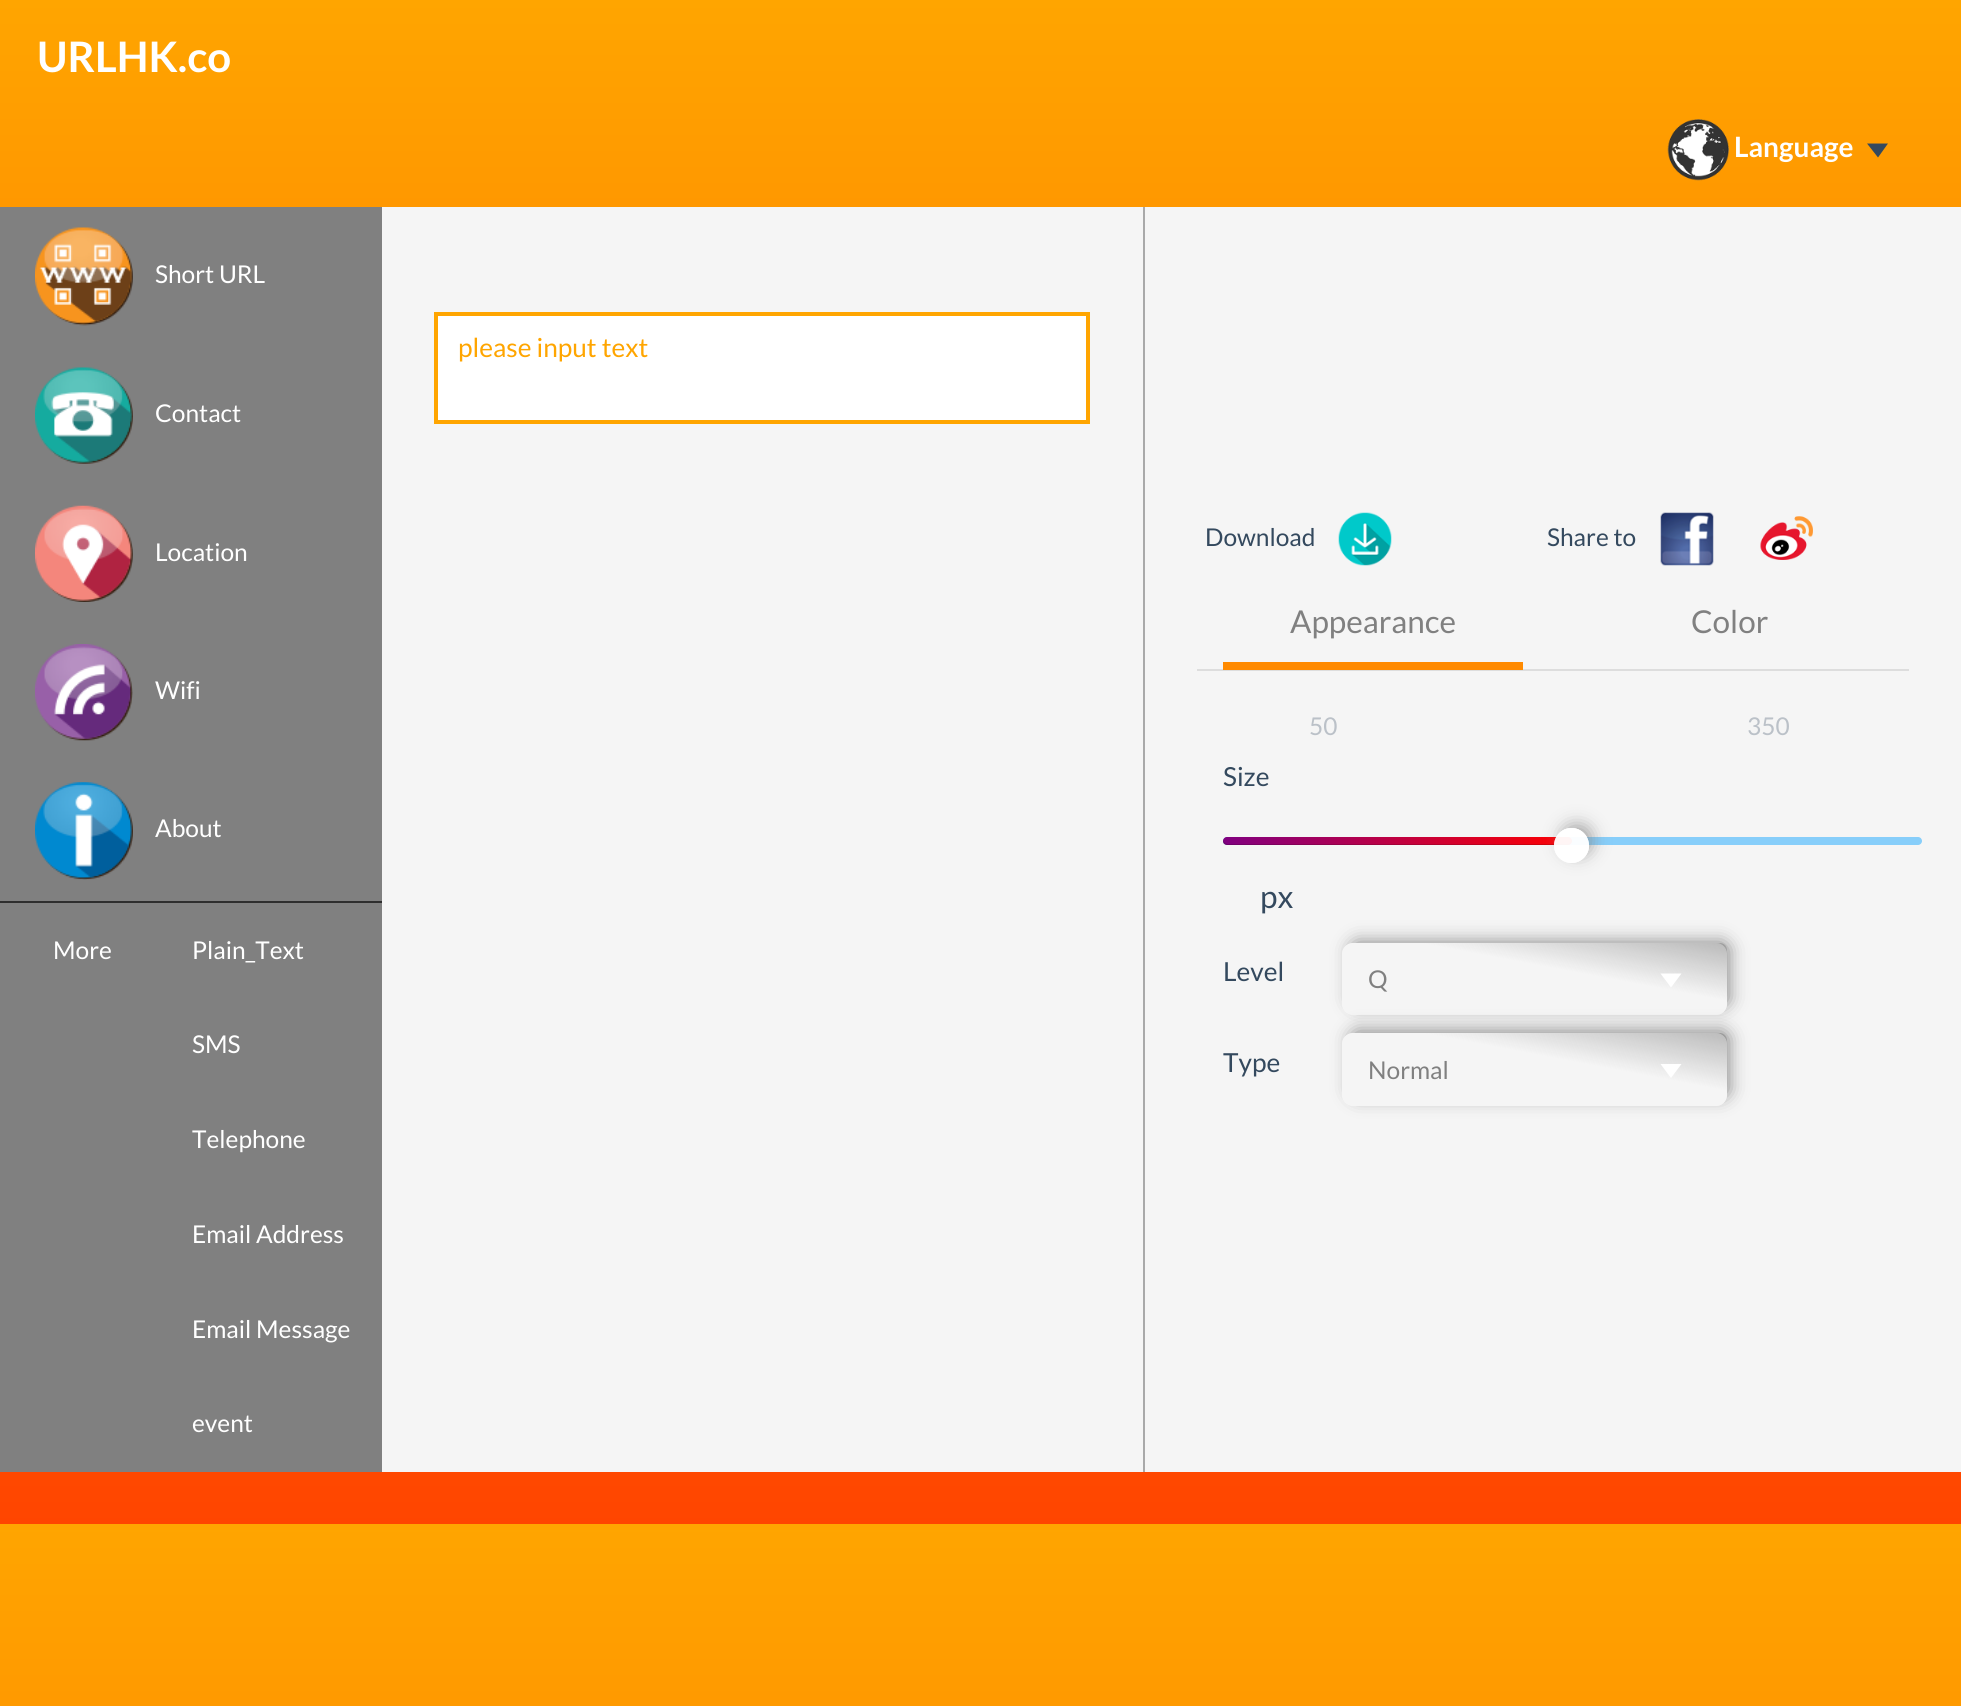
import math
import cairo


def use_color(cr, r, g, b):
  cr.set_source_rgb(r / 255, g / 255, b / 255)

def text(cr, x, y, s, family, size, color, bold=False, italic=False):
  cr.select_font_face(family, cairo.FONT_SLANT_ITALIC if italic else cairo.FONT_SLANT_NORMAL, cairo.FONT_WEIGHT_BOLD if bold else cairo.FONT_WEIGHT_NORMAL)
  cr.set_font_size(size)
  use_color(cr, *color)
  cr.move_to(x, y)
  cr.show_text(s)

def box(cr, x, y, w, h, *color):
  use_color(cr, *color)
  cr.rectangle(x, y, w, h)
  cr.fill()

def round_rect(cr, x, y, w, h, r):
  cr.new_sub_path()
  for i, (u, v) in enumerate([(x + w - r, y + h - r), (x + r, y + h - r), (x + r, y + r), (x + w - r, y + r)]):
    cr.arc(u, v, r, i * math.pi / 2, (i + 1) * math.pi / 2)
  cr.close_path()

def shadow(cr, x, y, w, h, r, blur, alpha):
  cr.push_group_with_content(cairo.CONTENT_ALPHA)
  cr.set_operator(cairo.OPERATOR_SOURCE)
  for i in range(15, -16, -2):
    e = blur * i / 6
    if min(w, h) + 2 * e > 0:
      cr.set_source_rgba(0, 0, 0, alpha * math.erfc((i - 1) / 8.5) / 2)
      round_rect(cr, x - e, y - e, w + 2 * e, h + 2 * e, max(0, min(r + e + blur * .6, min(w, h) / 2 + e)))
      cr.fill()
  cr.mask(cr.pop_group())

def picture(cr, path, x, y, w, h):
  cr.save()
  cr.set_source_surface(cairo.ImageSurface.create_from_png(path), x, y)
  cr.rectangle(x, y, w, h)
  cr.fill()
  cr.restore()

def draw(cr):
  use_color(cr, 255, 255, 255)
  cr.paint()
  gradient = cairo.LinearGradient(981, 0, 981, 1524)
  gradient.add_color_stop_rgba(0, 1, 0.647, 0, 1)
  gradient.add_color_stop_rgba(1, 1, 0.271, 0, 1)
  cr.set_source(gradient)
  cr.rectangle(0, 0, 1961, 1524)
  cr.fill()
  gradient = cairo.LinearGradient(981, 1524, 981, 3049)
  gradient.add_color_stop_rgba(0, 1, 0.647, 0, 1)
  gradient.add_color_stop_rgba(1, 1, 0.271, 0, 1)
  cr.set_source(gradient)
  cr.rectangle(0, 1524, 1961, 182)
  cr.fill()
  picture(cr, "img_01.png", 1667, 119, 62, 62)
  use_color(cr, 52, 73, 94)
  cr.new_path()
  cr.move_to(1867, 143.5)
  cr.line_to(1888, 143.5)
  cr.line_to(1878, 157.5)
  cr.close_path()
  cr.fill()
  box(cr, 382, 207, 1579, 1265, 245, 245, 245)
  box(cr, 1143, 207, 2, 1265, 169, 169, 169)
  box(cr, 0, 207, 382, 1265, 128, 128, 128)
  picture(cr, "img_02.png", 35, 227, 98, 99)
  picture(cr, "img_03.png", 35, 367, 98, 97)
  picture(cr, "img_04.png", 35, 505, 98, 97)
  picture(cr, "img_05.png", 35, 644, 98, 97)
  picture(cr, "img_06.png", 35, 782, 98, 98)
  box(cr, 0, 901, 382, 2, 46, 46, 46)
  use_color(cr, 255, 255, 255)
  cr.rectangle(436, 314, 652, 108)
  cr.fill_preserve()
  use_color(cr, 255, 165, 0)
  cr.set_line_width(4)
  cr.stroke()
  picture(cr, "img_07.png", 1338, 512, 54, 54)
  picture(cr, "img_08.png", 1660, 512, 54, 54)
  picture(cr, "img_09.png", 1760, 516, 53, 44)
  box(cr, 1197, 669, 712, 2, 221, 221, 221)
  box(cr, 1223, 662, 300, 8, 255, 138, 0)
  use_color(cr, 135, 206, 250)
  round_rect(cr, 1223, 837, 699, 8, 4)
  cr.fill()
  gradient = cairo.LinearGradient(1223, 841, 1572, 841)
  gradient.add_color_stop_rgba(0, 0.502, 0, 0.502, 1)
  gradient.add_color_stop_rgba(1, 1, 0, 0, 1)
  cr.set_source(gradient)
  round_rect(cr, 1223, 837, 349, 8, 4)
  cr.fill()
  cr.set_source_rgba(0, 0, 0, 0.15)
  cr.new_path()
  cr.move_to(1223, 840)
  cr.line_to(1223, 843)
  cr.curve_to(1224, 844, 1225, 845, 1227, 845)
  cr.line_to(1568, 845)
  cr.line_to(1570, 844)
  cr.curve_to(1572, 843, 1572, 842, 1572, 840)
  cr.curve_to(1571, 842, 1570, 844, 1567, 844)
  cr.line_to(1228, 844)
  cr.curve_to(1225, 844, 1224, 842, 1223, 840)
  cr.close_path()
  cr.fill()
  cr.save()
  cr.set_fill_rule(cairo.FILL_RULE_EVEN_ODD)
  cr.new_path()
  cr.move_to(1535, 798)
  cr.line_to(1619, 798)
  cr.line_to(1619, 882)
  cr.line_to(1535, 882)
  cr.close_path()
  cr.move_to(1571.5, 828)
  cr.curve_to(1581, 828, 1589, 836, 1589, 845.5)
  cr.curve_to(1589, 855, 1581, 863, 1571.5, 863)
  cr.curve_to(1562, 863, 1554, 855, 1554, 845.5)
  cr.curve_to(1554, 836, 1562, 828, 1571.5, 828)
  cr.close_path()
  cr.clip()
  use_color(cr, 136, 136, 136)
  shadow(cr, 1563, 826, 28, 28, 14, 9, 0.8)
  cr.restore()
  cr.set_source_rgba(1, 1, 1, 0.8)
  cr.arc(1571.5, 845.5, 17.5, 0, 2 * math.pi)
  cr.fill()
  cr.arc(1571.5, 845.5, 17.5, 0, 2 * math.pi)
  cr.fill()
  cr.save()
  cr.set_fill_rule(cairo.FILL_RULE_EVEN_ODD)
  cr.new_path()
  cr.move_to(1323, 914)
  cr.line_to(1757, 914)
  cr.line_to(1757, 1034)
  cr.line_to(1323, 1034)
  cr.close_path()
  cr.move_to(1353, 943)
  cr.line_to(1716, 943)
  cr.curve_to(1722, 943, 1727, 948, 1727, 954)
  cr.line_to(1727, 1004)
  cr.curve_to(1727, 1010, 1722, 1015, 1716, 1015)
  cr.line_to(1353, 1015)
  cr.curve_to(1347, 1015, 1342, 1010, 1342, 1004)
  cr.line_to(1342, 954)
  cr.curve_to(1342, 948, 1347, 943, 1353, 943)
  cr.close_path()
  cr.clip()
  use_color(cr, 136, 136, 136)
  shadow(cr, 1351, 942, 378, 64, 7, 9, 1)
  cr.restore()
  gradient = cairo.LinearGradient(1522, 1048, 1548, 910)
  gradient.add_color_stop_rgba(0.6, 0.502, 0.502, 0.502, 0)
  gradient.add_color_stop_rgba(1, 0.502, 0.502, 0.502, 0.5)
  cr.set_source(gradient)
  round_rect(cr, 1342, 943, 385, 72, 7)
  cr.fill()
  use_color(cr, 255, 255, 255)
  cr.new_path()
  cr.move_to(1660.5, 973.5)
  cr.line_to(1681.5, 973.5)
  cr.line_to(1671, 987.5)
  cr.close_path()
  cr.fill()
  cr.save()
  cr.set_fill_rule(cairo.FILL_RULE_EVEN_ODD)
  cr.new_path()
  cr.move_to(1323, 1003)
  cr.line_to(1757, 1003)
  cr.line_to(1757, 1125)
  cr.line_to(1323, 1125)
  cr.close_path()
  cr.move_to(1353, 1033)
  cr.line_to(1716, 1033)
  cr.curve_to(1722, 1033, 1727, 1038, 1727, 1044)
  cr.line_to(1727, 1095)
  cr.curve_to(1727, 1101, 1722, 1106, 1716, 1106)
  cr.line_to(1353, 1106)
  cr.curve_to(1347, 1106, 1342, 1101, 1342, 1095)
  cr.line_to(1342, 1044)
  cr.curve_to(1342, 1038, 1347, 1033, 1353, 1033)
  cr.close_path()
  cr.clip()
  use_color(cr, 136, 136, 136)
  shadow(cr, 1351, 1031, 378, 66, 7, 9, 1)
  cr.restore()
  gradient = cairo.LinearGradient(1521, 1140, 1548, 998)
  gradient.add_color_stop_rgba(0.6, 0.502, 0.502, 0.502, 0)
  gradient.add_color_stop_rgba(1, 0.502, 0.502, 0.502, 0.5)
  cr.set_source(gradient)
  round_rect(cr, 1342, 1033, 385, 73, 7)
  cr.fill()
  use_color(cr, 255, 255, 255)
  cr.new_path()
  cr.move_to(1660.5, 1064)
  cr.line_to(1681.5, 1064)
  cr.line_to(1671, 1078)
  cr.close_path()
  cr.fill()
  text(cr, 37, 72, "URLHK.co", "Lato", 42, (255, 255, 255), bold=True)
  text(cr, 1734, 157, "Language", "Lato", 28, (255, 255, 255), bold=True)
  text(cr, 155, 283, "Short URL", "Lato", 24.5, (255, 255, 255))
  text(cr, 155, 422, "Contact", "Lato", 24.5, (255, 255, 255))
  text(cr, 155, 561, "Location", "Lato", 24.5, (255, 255, 255))
  text(cr, 155, 699, "Wifi", "Lato", 24.5, (255, 255, 255))
  text(cr, 155, 837, "About", "Lato", 24.5, (255, 255, 255))
  text(cr, 53, 959, "More", "Lato", 24.5, (255, 255, 255))
  text(cr, 192, 959, "Plain_Text", "Lato", 24.5, (255, 255, 255))
  text(cr, 192, 1053, "SMS", "Lato", 24.5, (255, 255, 255))
  text(cr, 192, 1148, "Telephone", "Lato", 24.5, (255, 255, 255))
  text(cr, 192, 1243, "Email Address", "Lato", 24.5, (255, 255, 255))
  text(cr, 192, 1338, "Email Message", "Lato", 24.5, (255, 255, 255))
  text(cr, 192, 1432, "event", "Lato", 24.5, (255, 255, 255))
  text(cr, 458, 357, "please input text", "Lato", 26.25, (255, 165, 0))
  text(cr, 1205, 546, "Download", "Lato", 24.5, (52, 73, 94))
  text(cr, 1547, 546, "Share to", "Lato", 24.5, (52, 73, 94))
  text(cr, 1290, 633, "Appearance", "Lato", 31.5, (128, 128, 128))
  text(cr, 1691, 633, "Color", "Lato", 31.5, (128, 128, 128))
  text(cr, 1309, 735, "50", "Lato", 24.5, (187, 193, 200))
  text(cr, 1747, 735, "350", "Lato", 24.5, (187, 193, 200))
  text(cr, 1223, 786, "Size", "Lato", 26.25, (52, 73, 94))
  text(cr, 1260, 908, "px", "Lato", 31.5, (52, 73, 94))
  text(cr, 1223, 981, "Level", "Lato", 26.25, (52, 73, 94))
  text(cr, 1368, 988, "Q", "Lato", 24.5, (128, 128, 128))
  text(cr, 1223, 1072, "Type", "Lato", 26.25, (52, 73, 94))
  text(cr, 1368, 1079, "Normal", "Lato", 24.5, (128, 128, 128))


surface = cairo.ImageSurface(cairo.FORMAT_RGB24, 1961, 1706)
cr = cairo.Context(surface)
options = cairo.FontOptions()
options.set_hint_metrics(cairo.HINT_METRICS_OFF)
options.set_hint_style(cairo.HINT_STYLE_NONE)
cr.set_font_options(options)
cr.set_miter_limit(4)
draw(cr)
surface.write_to_png("out.png")
